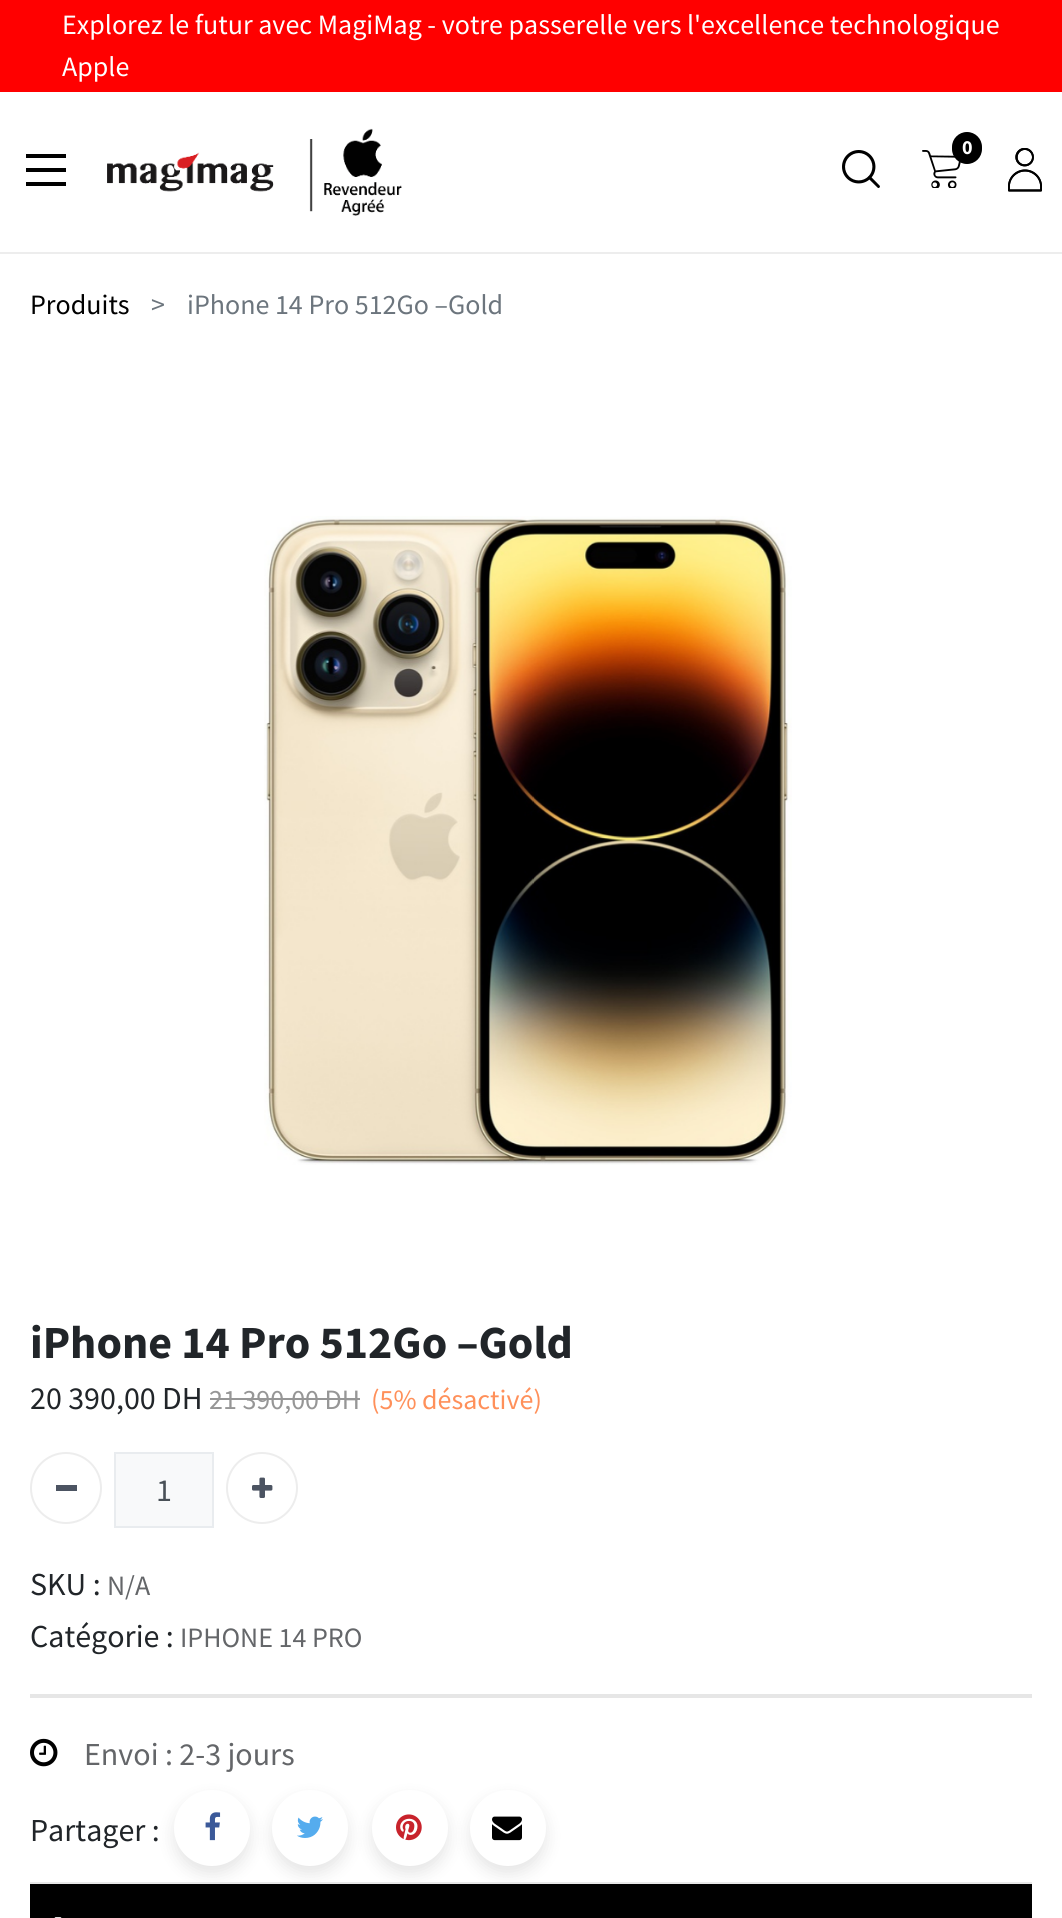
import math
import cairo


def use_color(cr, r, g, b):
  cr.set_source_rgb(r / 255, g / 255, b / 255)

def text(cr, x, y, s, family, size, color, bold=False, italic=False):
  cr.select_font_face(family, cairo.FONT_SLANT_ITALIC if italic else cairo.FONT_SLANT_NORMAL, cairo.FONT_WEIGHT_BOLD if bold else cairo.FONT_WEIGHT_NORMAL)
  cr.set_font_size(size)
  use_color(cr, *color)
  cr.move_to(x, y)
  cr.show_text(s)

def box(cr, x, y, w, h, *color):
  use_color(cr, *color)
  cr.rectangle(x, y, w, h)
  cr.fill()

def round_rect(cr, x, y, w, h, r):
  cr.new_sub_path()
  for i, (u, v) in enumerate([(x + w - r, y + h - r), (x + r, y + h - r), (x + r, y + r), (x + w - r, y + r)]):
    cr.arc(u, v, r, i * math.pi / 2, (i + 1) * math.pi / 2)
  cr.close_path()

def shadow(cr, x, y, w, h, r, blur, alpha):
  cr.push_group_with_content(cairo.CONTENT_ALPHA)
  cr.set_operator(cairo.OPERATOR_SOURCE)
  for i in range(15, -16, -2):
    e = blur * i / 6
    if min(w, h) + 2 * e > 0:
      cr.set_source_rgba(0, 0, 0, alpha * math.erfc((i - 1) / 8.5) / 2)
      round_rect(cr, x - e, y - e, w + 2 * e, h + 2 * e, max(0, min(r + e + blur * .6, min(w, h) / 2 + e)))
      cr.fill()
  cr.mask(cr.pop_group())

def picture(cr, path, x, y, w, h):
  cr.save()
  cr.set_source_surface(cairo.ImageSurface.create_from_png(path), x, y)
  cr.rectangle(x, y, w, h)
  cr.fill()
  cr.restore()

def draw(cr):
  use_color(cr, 255, 255, 255)
  cr.paint()
  box(cr, 0, 0, 1062, 92, 255, 0, 0)
  box(cr, 26, 154, 40, 4, 0, 0, 0)
  box(cr, 26, 168, 40, 4, 0, 0, 0)
  box(cr, 26, 182, 40, 4, 0, 0, 0)
  picture(cr, "img_01.png", 107, 128, 295, 88)
  picture(cr, "img_02.png", 842, 150, 38, 38)
  picture(cr, "img_03.png", 922, 150, 39, 38)
  round_rect(cr, 952, 132, 30, 32, 15)
  cr.fill()
  picture(cr, "img_04.png", 1008, 148, 34, 44)
  picture(cr, "img_05.png", 1008, 148, 34, 44)
  box(cr, 0, 252, 1062, 2, 237, 237, 237)
  picture(cr, "img_06.png", 264, 516, 528, 649)
  box(cr, 210, 1398, 150, 2, 150, 150, 150)
  cr.arc(66, 1488, 35, 0, 2 * math.pi)
  use_color(cr, 237, 237, 237)
  cr.stroke()
  box(cr, 56, 1485, 21, 6, 76, 84, 98)
  use_color(cr, 248, 249, 250)
  cr.rectangle(115, 1453, 98, 74)
  cr.fill_preserve()
  use_color(cr, 233, 236, 239)
  cr.stroke()
  cr.arc(262, 1488, 35, 0, 2 * math.pi)
  use_color(cr, 237, 237, 237)
  cr.stroke()
  picture(cr, "img_07.png", 252, 1477, 21, 21)
  box(cr, 30, 1694, 1002, 4, 230, 230, 230)
  picture(cr, "img_08.png", 30, 1738, 28, 29)
  use_color(cr, 0, 0, 0)
  shadow(cr, 174, 1798, 76, 76, 38, 8, 0.1)
  use_color(cr, 255, 255, 255)
  cr.arc(212, 1828, 38, 0, 2 * math.pi)
  cr.fill()
  picture(cr, "img_09.png", 205, 1812, 16, 29)
  use_color(cr, 0, 0, 0)
  shadow(cr, 272, 1798, 76, 76, 38, 8, 0.1)
  use_color(cr, 255, 255, 255)
  cr.arc(310, 1828, 38, 0, 2 * math.pi)
  cr.fill()
  picture(cr, "img_10.png", 297, 1816, 26, 22)
  use_color(cr, 0, 0, 0)
  shadow(cr, 372, 1798, 76, 76, 38, 8, 0.1)
  use_color(cr, 255, 255, 255)
  cr.arc(410, 1828, 38, 0, 2 * math.pi)
  cr.fill()
  picture(cr, "img_11.png", 396, 1814, 26, 27)
  use_color(cr, 0, 0, 0)
  shadow(cr, 470, 1798, 76, 76, 38, 8, 0.1)
  use_color(cr, 255, 255, 255)
  cr.arc(508, 1828, 38, 0, 2 * math.pi)
  cr.fill()
  picture(cr, "img_12.png", 492, 1816, 30, 25)
  box(cr, 30, 1882, 1002, 2, 232, 232, 232)
  box(cr, 30, 1884, 1002, 34, 0, 0, 0)
  picture(cr, "img_13.png", 54, 1917, 8, 1)
  text(cr, 62, 34, "Explorez le futur avec MagiMag - votre passerelle vers l'excellence technologique", "Source Sans Pro", 28, (255, 255, 255))
  text(cr, 62, 76, "Apple", "Source Sans Pro", 28, (255, 255, 255))
  text(cr, 962, 154, "0", "Source Sans Pro", 20, (255, 255, 255), bold=True)
  text(cr, 30, 314, "Produits", "Source Sans Pro", 28, (0, 0, 0))
  text(cr, 151, 314, ">", "Source Sans Pro", 28, (108, 117, 125))
  text(cr, 187, 314, "iPhone 14 Pro 512Go –Gold", "Source Sans Pro", 28, (108, 117, 125))
  text(cr, 30, 1358, "iPhone 14 Pro 512Go –Gold", "Source Sans Pro", 46, (33, 37, 41), bold=True)
  text(cr, 30, 1409, "20 390,00 DH", "Source Sans Pro", 32, (33, 37, 41))
  text(cr, 209, 1409, "21 390,00 DH", "Source Sans Pro", 28, (150, 150, 150))
  text(cr, 371, 1409, "(5% désactivé)", "Source Sans Pro", 28, (255, 144, 90))
  text(cr, 156, 1501, "1", "Source Sans Pro", 32, (73, 80, 87))
  text(cr, 30, 1595, "SKU :", "Source Sans Pro", 32, (33, 37, 41))
  text(cr, 107, 1595, "N/A", "Source Sans Pro", 28, (100, 102, 105))
  text(cr, 30, 1647, "Catégorie :", "Source Sans Pro", 32, (33, 37, 41))
  text(cr, 180, 1647, "IPHONE 14 PRO", "Source Sans Pro", 28, (100, 102, 105))
  text(cr, 84, 1765, "Envoi : 2-3 jours", "Source Sans Pro", 32, (100, 102, 105))
  text(cr, 30, 1841, "Partager :", "Source Sans Pro", 32, (33, 37, 41))


surface = cairo.ImageSurface(cairo.FORMAT_RGB24, 1062, 1918)
cr = cairo.Context(surface)
options = cairo.FontOptions()
options.set_hint_metrics(cairo.HINT_METRICS_OFF)
options.set_hint_style(cairo.HINT_STYLE_NONE)
cr.set_font_options(options)
cr.set_miter_limit(4)
draw(cr)
surface.write_to_png("out.png")
